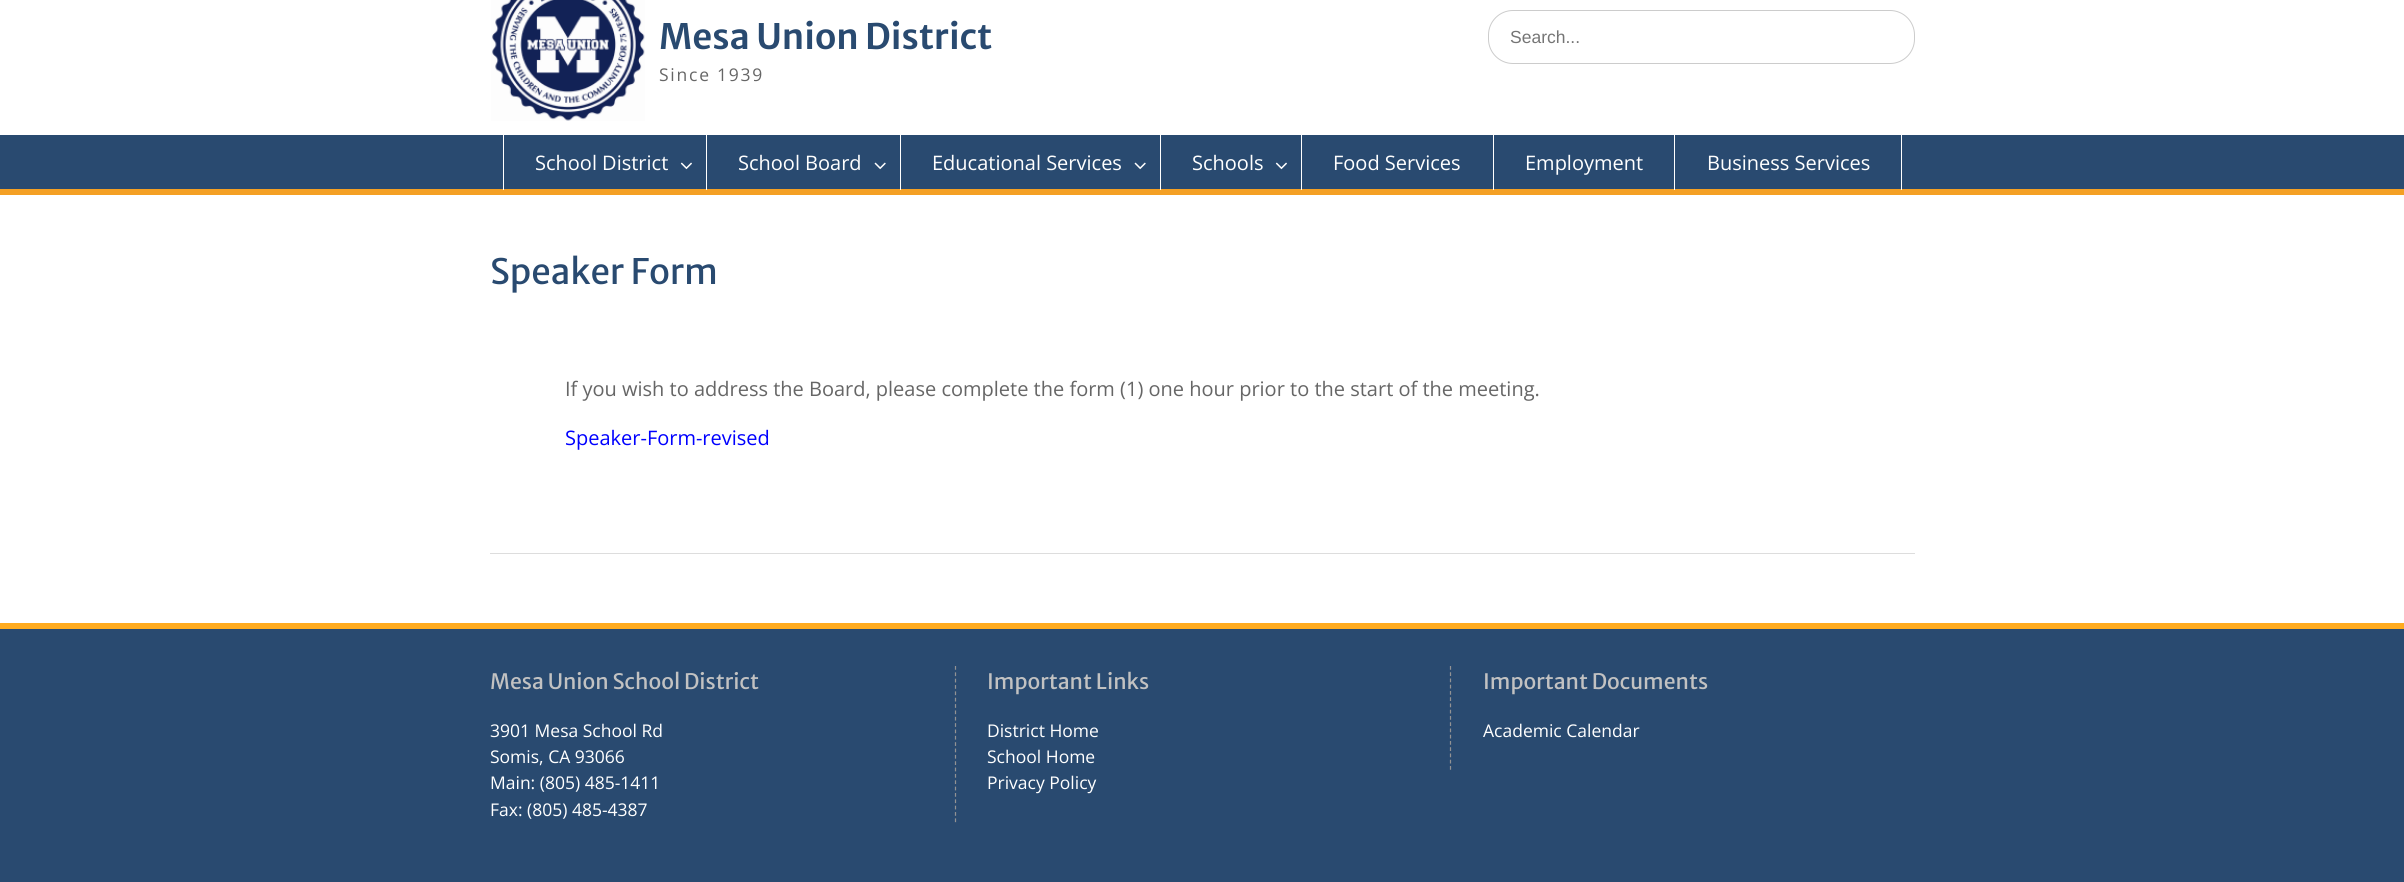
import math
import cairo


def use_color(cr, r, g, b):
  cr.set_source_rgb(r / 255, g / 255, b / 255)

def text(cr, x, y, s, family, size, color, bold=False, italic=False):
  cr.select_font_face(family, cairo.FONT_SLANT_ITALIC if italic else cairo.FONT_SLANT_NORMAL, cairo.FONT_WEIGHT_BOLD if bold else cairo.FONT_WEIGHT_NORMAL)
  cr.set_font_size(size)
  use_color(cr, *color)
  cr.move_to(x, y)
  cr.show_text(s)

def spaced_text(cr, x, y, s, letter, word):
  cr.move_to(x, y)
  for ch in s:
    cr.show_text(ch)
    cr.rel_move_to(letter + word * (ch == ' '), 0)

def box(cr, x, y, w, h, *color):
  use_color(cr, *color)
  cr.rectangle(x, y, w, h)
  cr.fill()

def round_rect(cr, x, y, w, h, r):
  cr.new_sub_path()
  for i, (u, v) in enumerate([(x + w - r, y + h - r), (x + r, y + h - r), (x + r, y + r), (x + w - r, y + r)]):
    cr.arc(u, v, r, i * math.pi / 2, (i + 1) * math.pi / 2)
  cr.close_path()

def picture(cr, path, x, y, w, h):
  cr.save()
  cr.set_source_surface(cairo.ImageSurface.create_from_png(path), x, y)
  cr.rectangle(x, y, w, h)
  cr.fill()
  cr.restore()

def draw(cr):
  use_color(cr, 255, 255, 255)
  cr.paint()
  picture(cr, "img_01.png", 491, 0, 154, 121)
  round_rect(cr, 1488.5, 10.5, 426, 53, 24.5)
  use_color(cr, 204, 204, 204)
  cr.set_line_width(1)
  cr.stroke()
  box(cr, 0, 135, 2404, 54, 41, 74, 112)
  box(cr, 0, 189, 2404, 6, 244, 160, 36)
  box(cr, 706, 135, 1, 55, 255, 255, 255)
  box(cr, 503, 135, 1, 55, 255, 255, 255)
  picture(cr, "img_02.png", 680, 162, 12, 8)
  box(cr, 900, 135, 1, 55, 255, 255, 255)
  picture(cr, "img_03.png", 874, 162, 12, 8)
  box(cr, 1160, 135, 1, 55, 255, 255, 255)
  picture(cr, "img_03.png", 1134, 162, 12, 8)
  box(cr, 1301, 135, 1, 55, 255, 255, 255)
  picture(cr, "img_02.png", 1275, 162, 12, 8)
  box(cr, 1493, 135, 1, 55, 255, 255, 255)
  box(cr, 1674, 135, 1, 55, 255, 255, 255)
  box(cr, 1901, 135, 1, 55, 255, 255, 255)
  box(cr, 490, 553, 1425, 1, 221, 221, 221)
  box(cr, 0, 629, 2404, 253, 41, 74, 112)
  box(cr, 0, 623, 2404, 6, 255, 171, 31)
  cr.new_path()
  cr.move_to(955.5, 666)
  cr.line_to(955.5, 822.5)
  use_color(cr, 147, 147, 147)
  cr.set_line_width(1.2)
  cr.set_dash([3.75, 2.6])
  cr.stroke()
  cr.new_path()
  cr.move_to(1450.5, 666)
  cr.line_to(1450.5, 770)
  cr.set_dash([3.75, 2.5])
  cr.stroke()
  text(cr, 659, 49, "Mesa Union District", "Merriweather Sans SemiBold", 35, (41, 74, 112))
  cr.select_font_face("Open Sans")
  cr.set_font_size(17.5)
  use_color(cr, 102, 102, 102)
  spaced_text(cr, 659, 81, "Since 1939", 1.75, 0)
  text(cr, 1510, 43, "Search...", "Liberation Sans", 17.5, (117, 117, 117))
  text(cr, 535, 170, "School District", "Open Sans", 20, (255, 255, 255))
  text(cr, 738, 170, "School Board", "Open Sans", 20, (255, 255, 255))
  text(cr, 932, 170, "Educational Services", "Open Sans", 20, (255, 255, 255))
  text(cr, 1192, 170, "Schools", "Open Sans", 20, (255, 255, 255))
  text(cr, 1333, 170, "Food Services", "Open Sans", 20, (255, 255, 255))
  text(cr, 1525, 170, "Employment", "Open Sans", 20, (255, 255, 255))
  text(cr, 1707, 170, "Business Services", "Open Sans", 20, (255, 255, 255))
  text(cr, 490, 284, "Speaker Form", "Merriweather Sans", 35, (41, 74, 112))
  text(cr, 565, 396, "If you wish to address the Board, please complete the form (1) one hour prior to the start of the meeting.", "Open Sans", 20, (102, 102, 102))
  text(cr, 565, 445, "Speaker-Form-revised", "Open Sans", 20, (0, 0, 255))
  text(cr, 490, 689, "Mesa Union School District", "Merriweather Sans", 21.25, (194, 194, 194))
  text(cr, 490, 737, "3901 Mesa School Rd", "Open Sans", 17.5, (255, 255, 255))
  text(cr, 490, 763, "Somis, CA 93066", "Open Sans", 17.5, (255, 255, 255))
  text(cr, 490, 789, "Main: (805) 485-1411", "Open Sans", 17.5, (255, 255, 255))
  text(cr, 490, 816, "Fax: (805) 485-4387", "Open Sans", 17.5, (255, 255, 255))
  text(cr, 987, 689, "Important Links", "Merriweather Sans", 21.25, (194, 194, 194))
  text(cr, 987, 737, "District Home", "Open Sans", 17.5, (255, 255, 255))
  text(cr, 987, 763, "School Home", "Open Sans", 17.5, (255, 255, 255))
  text(cr, 987, 789, "Privacy Policy", "Open Sans", 17.5, (255, 255, 255))
  text(cr, 1483, 689, "Important Documents", "Merriweather Sans", 21.25, (194, 194, 194))
  text(cr, 1483, 737, "Academic Calendar", "Open Sans", 17.5, (255, 255, 255))


surface = cairo.ImageSurface(cairo.FORMAT_RGB24, 2404, 882)
cr = cairo.Context(surface)
options = cairo.FontOptions()
options.set_hint_metrics(cairo.HINT_METRICS_OFF)
options.set_hint_style(cairo.HINT_STYLE_NONE)
cr.set_font_options(options)
cr.set_miter_limit(4)
draw(cr)
surface.write_to_png("out.png")
